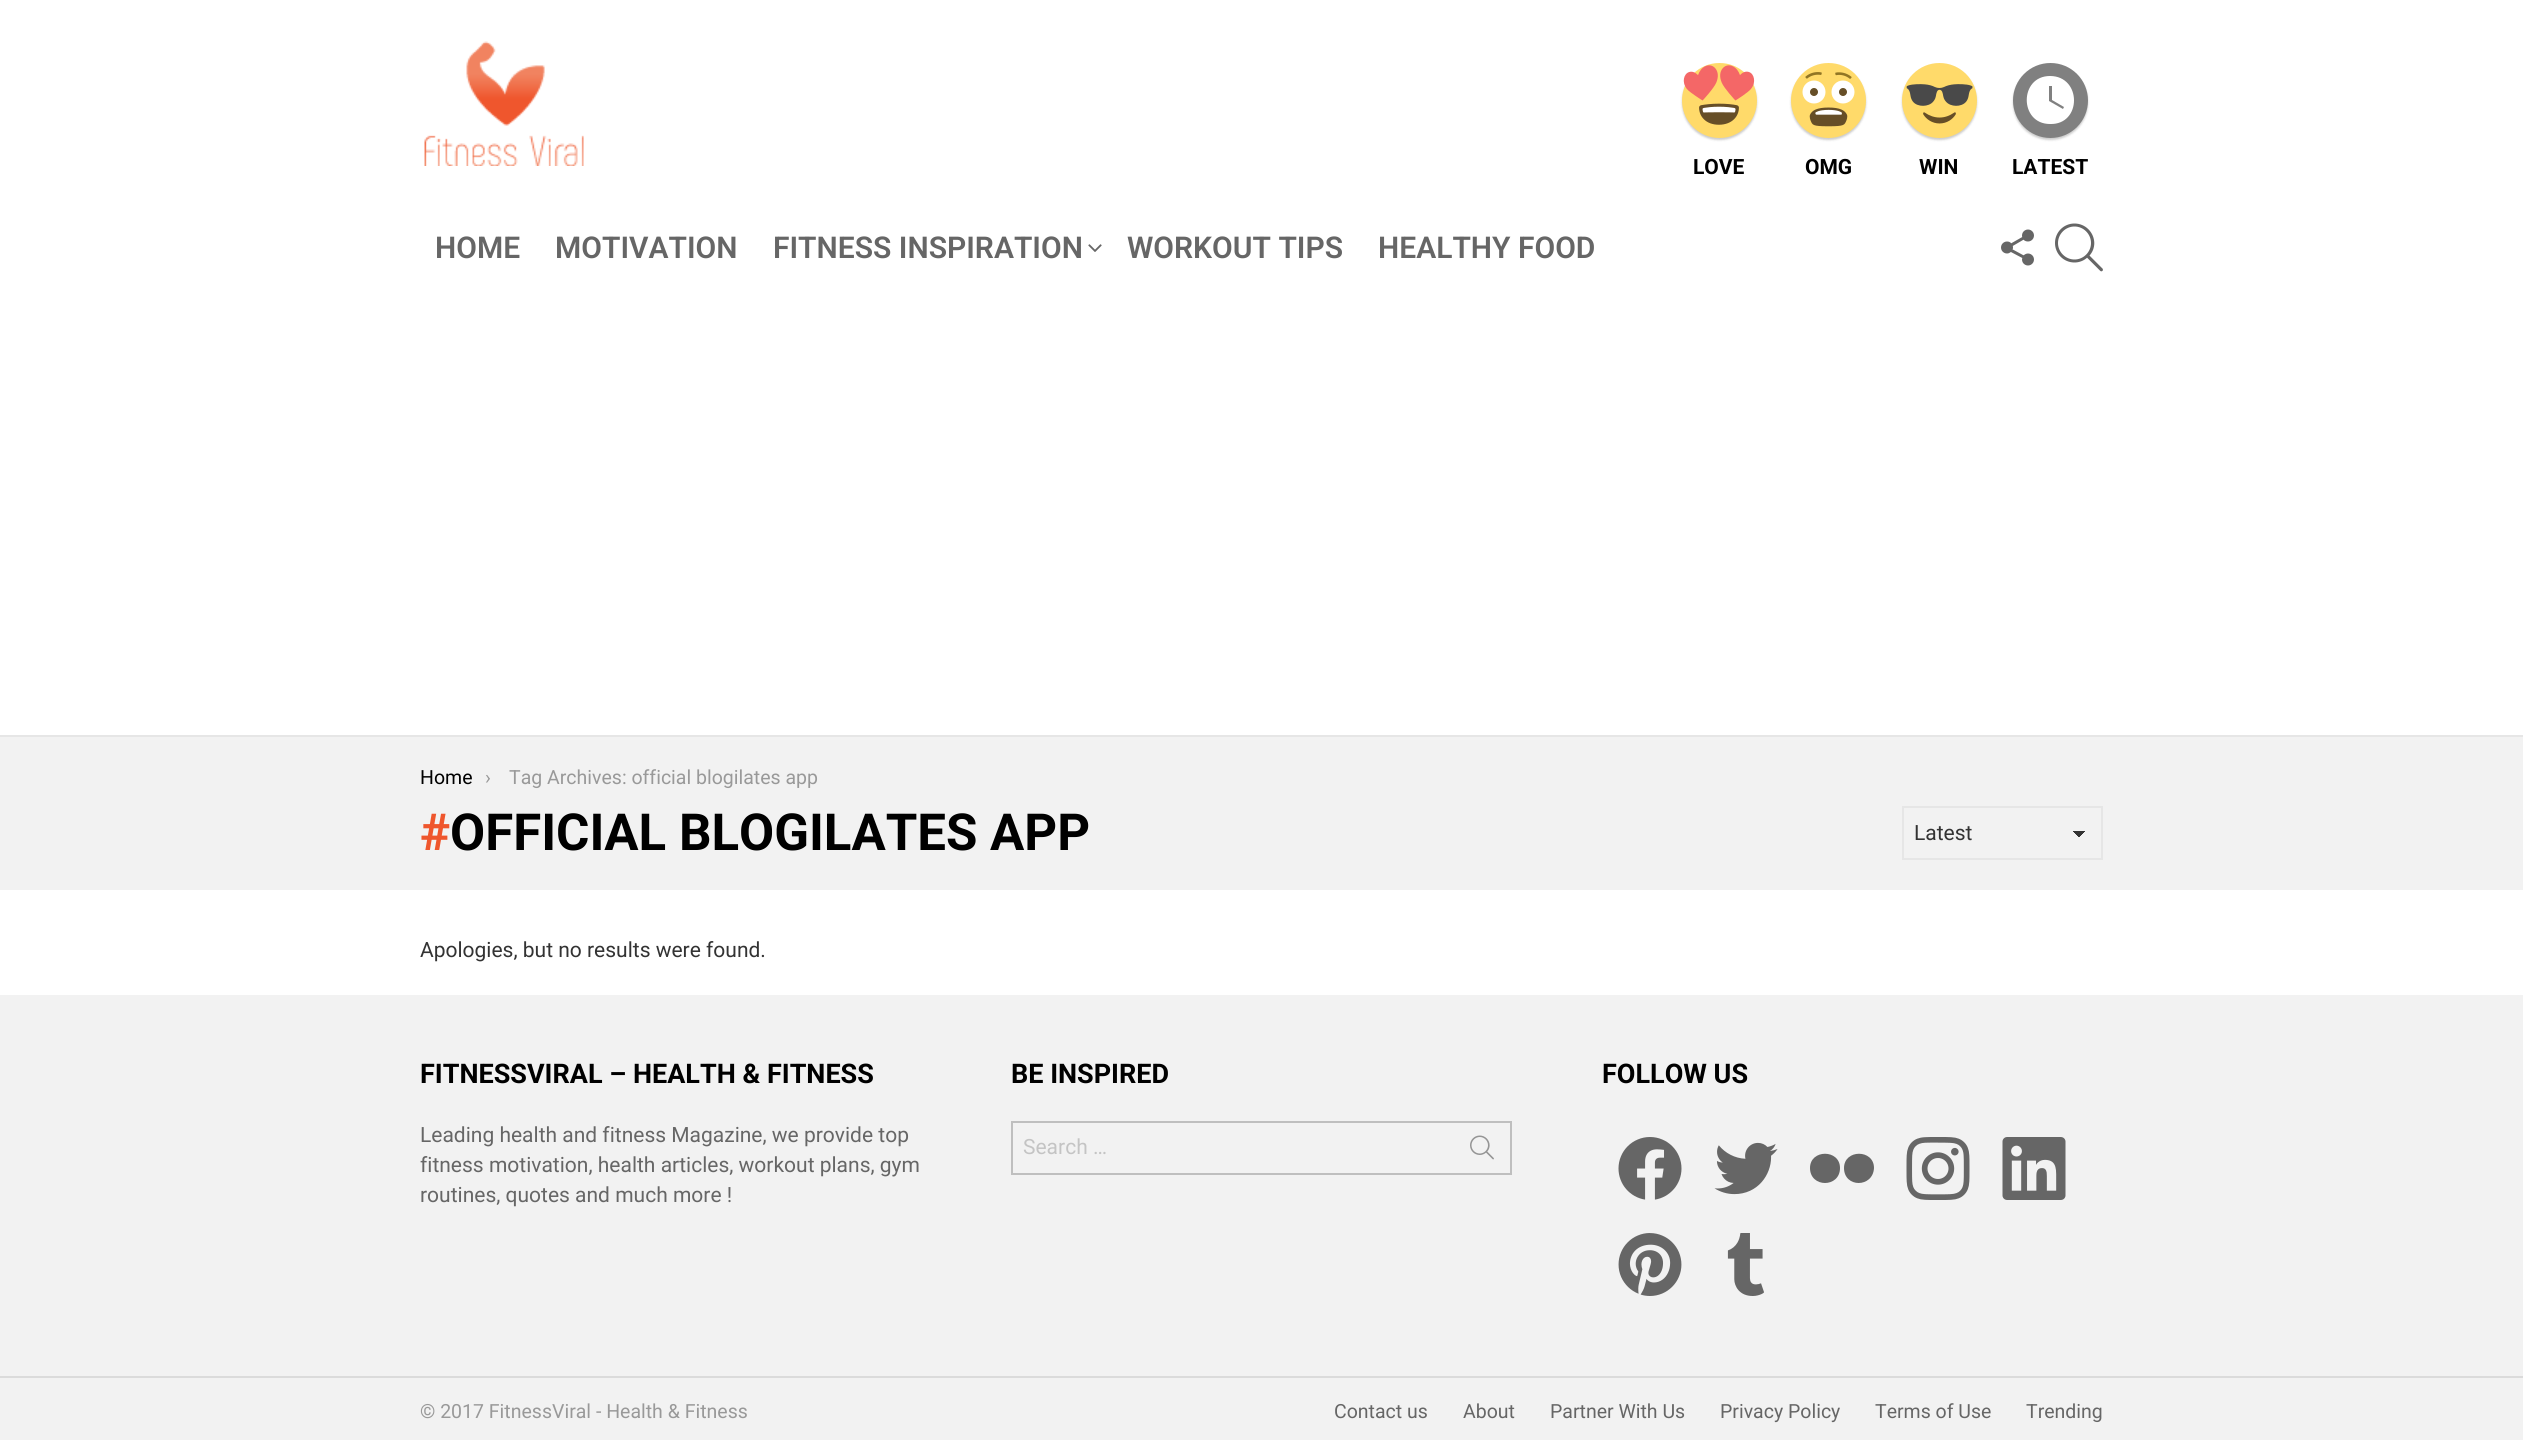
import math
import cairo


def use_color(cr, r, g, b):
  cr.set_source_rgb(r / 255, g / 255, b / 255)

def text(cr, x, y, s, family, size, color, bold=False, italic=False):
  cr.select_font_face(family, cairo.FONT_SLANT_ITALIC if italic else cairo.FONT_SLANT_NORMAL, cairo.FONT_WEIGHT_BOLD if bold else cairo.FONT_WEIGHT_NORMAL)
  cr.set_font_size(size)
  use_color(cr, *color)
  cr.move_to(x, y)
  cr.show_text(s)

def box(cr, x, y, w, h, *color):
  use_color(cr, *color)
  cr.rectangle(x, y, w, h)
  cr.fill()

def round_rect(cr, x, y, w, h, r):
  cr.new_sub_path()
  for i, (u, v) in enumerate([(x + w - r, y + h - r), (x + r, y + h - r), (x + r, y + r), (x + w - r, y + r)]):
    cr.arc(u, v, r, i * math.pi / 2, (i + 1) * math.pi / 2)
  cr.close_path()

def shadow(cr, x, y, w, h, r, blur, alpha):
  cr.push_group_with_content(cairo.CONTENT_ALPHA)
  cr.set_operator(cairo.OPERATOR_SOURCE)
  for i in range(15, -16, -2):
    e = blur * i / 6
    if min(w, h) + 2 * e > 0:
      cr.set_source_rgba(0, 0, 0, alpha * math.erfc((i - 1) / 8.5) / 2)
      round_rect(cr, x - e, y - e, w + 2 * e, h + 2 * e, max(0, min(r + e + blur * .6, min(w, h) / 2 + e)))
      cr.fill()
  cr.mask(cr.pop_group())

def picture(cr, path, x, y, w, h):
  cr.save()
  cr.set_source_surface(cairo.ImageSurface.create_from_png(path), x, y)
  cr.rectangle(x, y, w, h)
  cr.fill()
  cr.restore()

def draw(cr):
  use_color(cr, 255, 255, 255)
  cr.paint()
  picture(cr, "img_01.png", 424, 41, 160, 125)
  use_color(cr, 0, 0, 0)
  shadow(cr, 1682, 65, 75, 75, 37.5, 1, 0.2)
  use_color(cr, 255, 218, 106)
  cr.arc(1719.5, 100.5, 37.5, 0, 2 * math.pi)
  cr.fill()
  picture(cr, "img_02.png", 1683, 65, 72, 60)
  use_color(cr, 0, 0, 0)
  shadow(cr, 1791, 65, 75, 75, 37.5, 1, 0.2)
  use_color(cr, 255, 218, 106)
  cr.arc(1828.5, 100.5, 37.5, 0, 2 * math.pi)
  cr.fill()
  picture(cr, "img_03.png", 1802, 72, 53, 55)
  use_color(cr, 0, 0, 0)
  shadow(cr, 1902, 65, 75, 75, 37.5, 1, 0.2)
  use_color(cr, 255, 218, 106)
  cr.arc(1939.5, 100.5, 37.5, 0, 2 * math.pi)
  cr.fill()
  picture(cr, "img_04.png", 1906, 84, 67, 40)
  use_color(cr, 0, 0, 0)
  shadow(cr, 2013, 65, 75, 75, 37.5, 1, 0.2)
  use_color(cr, 128, 128, 128)
  cr.arc(2050.5, 100.5, 37.5, 0, 2 * math.pi)
  cr.fill()
  use_color(cr, 255, 255, 255)
  cr.new_path()
  cr.move_to(2050, 76)
  cr.curve_to(2019, 76, 2019, 124, 2050, 124)
  cr.curve_to(2082, 125, 2082, 76, 2050, 76)
  cr.close_path()
  cr.move_to(2063, 109)
  cr.line_to(2049, 101)
  cr.line_to(2049, 86)
  cr.line_to(2052, 86)
  cr.line_to(2052, 100)
  cr.line_to(2064, 107)
  cr.close_path()
  cr.fill()
  picture(cr, "img_05.png", 1088, 244, 14, 8)
  picture(cr, "img_06.png", 2001, 229, 33, 37)
  picture(cr, "img_07.png", 2055, 223, 48, 49)
  box(cr, 0, 735, 2523, 2, 230, 230, 230)
  box(cr, 0, 737, 2523, 153, 242, 242, 242)
  gradient = cairo.LinearGradient(2079, 831, 2086, 837)
  gradient.add_color_stop_rgba(0.5, 0.2, 0.2, 0.2, 1)
  gradient.add_color_stop_rgba(0.5, 0.949, 0.949, 0.949, 1)
  cr.set_source(gradient)
  cr.rectangle(2079, 831, 8, 6)
  cr.fill()
  gradient = cairo.LinearGradient(2072, 837, 2079, 831)
  gradient.add_color_stop_rgba(0.5, 0.949, 0.949, 0.949, 1)
  gradient.add_color_stop_rgba(0.5, 0.2, 0.2, 0.2, 1)
  cr.set_source(gradient)
  cr.rectangle(2072, 831, 7, 6)
  cr.fill()
  cr.rectangle(1903, 807, 199, 52)
  use_color(cr, 230, 230, 230)
  cr.stroke()
  box(cr, 0, 995, 2523, 381, 242, 242, 242)
  cr.rectangle(1012, 1122, 499, 52)
  use_color(cr, 191, 191, 191)
  cr.stroke()
  picture(cr, "img_08.png", 1470, 1135, 24, 25)
  picture(cr, "img_09.png", 1618, 1137, 64, 63)
  picture(cr, "img_10.png", 1714, 1142, 64, 53)
  use_color(cr, 102, 102, 102)
  cr.new_path()
  cr.move_to(1810, 1168)
  cr.curve_to(1810, 1188, 1840, 1188, 1840, 1168)
  cr.curve_to(1840, 1149, 1810, 1149, 1810, 1168)
  cr.close_path()
  cr.move_to(1844, 1168)
  cr.curve_to(1844, 1188, 1873, 1188, 1874, 1168)
  cr.curve_to(1874, 1149, 1844, 1149, 1844, 1168)
  cr.close_path()
  cr.fill()
  picture(cr, "img_11.png", 1906, 1137, 64, 63)
  picture(cr, "img_12.png", 2002, 1137, 64, 63)
  picture(cr, "img_13.png", 1618, 1233, 64, 63)
  picture(cr, "img_14.png", 1727, 1233, 37, 63)
  box(cr, 0, 1376, 2523, 2, 219, 219, 219)
  box(cr, 0, 1378, 2523, 62, 242, 242, 242)
  text(cr, 1693, 174, "LOVE", "Roboto", 21, (0, 0, 0), bold=True)
  text(cr, 1805, 174, "OMG", "Roboto", 21, (0, 0, 0), bold=True)
  text(cr, 1919, 174, "WIN", "Roboto", 21, (0, 0, 0), bold=True)
  text(cr, 2012, 174, "LATEST", "Roboto", 21, (0, 0, 0), bold=True)
  text(cr, 435, 258, "HOME", "Roboto SemiBold", 30, (102, 102, 102))
  text(cr, 555, 258, "MOTIVATION", "Roboto SemiBold", 30, (102, 102, 102))
  text(cr, 773, 258, "FITNESS INSPIRATION", "Roboto SemiBold", 30, (102, 102, 102))
  text(cr, 1127, 258, "WORKOUT TIPS", "Roboto SemiBold", 30, (102, 102, 102))
  text(cr, 1378, 258, "HEALTHY FOOD", "Roboto SemiBold", 30, (102, 102, 102))
  text(cr, 420, 784, "Home", "Roboto", 19.5, (0, 0, 0))
  text(cr, 485, 784, "›", "Roboto", 19.5, (153, 153, 153))
  text(cr, 509, 784, "Tag Archives: official blogilates app", "Roboto", 19.5, (153, 153, 153))
  text(cr, 420, 850, "#", "Roboto", 51, (239, 86, 45), bold=True)
  text(cr, 450, 850, "OFFICIAL BLOGILATES APP", "Roboto", 51, (0, 0, 0), bold=True)
  text(cr, 1914, 840, "Latest", "Roboto", 21, (51, 51, 51))
  text(cr, 420, 957, "Apologies, but no results were found.", "Roboto", 21, (51, 51, 51))
  text(cr, 420, 1083, "FITNESSVIRAL – HEALTH & FITNESS", "Roboto", 27, (0, 0, 0), bold=True)
  text(cr, 420, 1142, "Leading health and fitness Magazine, we provide top", "Roboto", 21, (102, 102, 102))
  text(cr, 420, 1172, "fitness motivation, health articles, workout plans, gym", "Roboto", 21, (102, 102, 102))
  text(cr, 420, 1202, "routines, quotes and much more !", "Roboto", 21, (102, 102, 102))
  text(cr, 1011, 1083, "BE INSPIRED", "Roboto", 27, (0, 0, 0), bold=True)
  text(cr, 1023, 1154, "Search …", "Roboto", 21, (196, 196, 196))
  text(cr, 1602, 1083, "FOLLOW US", "Roboto", 27, (0, 0, 0), bold=True)
  text(cr, 420, 1418, "© 2017 FitnessViral - Health & Fitness", "Roboto", 19.5, (153, 153, 153))
  text(cr, 1334, 1418, "Contact us", "Roboto", 19.5, (102, 102, 102))
  text(cr, 1463, 1418, "About", "Roboto", 19.5, (102, 102, 102))
  text(cr, 1550, 1418, "Partner With Us", "Roboto", 19.5, (102, 102, 102))
  text(cr, 1720, 1418, "Privacy Policy", "Roboto", 19.5, (102, 102, 102))
  text(cr, 1875, 1418, "Terms of Use", "Roboto", 19.5, (102, 102, 102))
  text(cr, 2026, 1418, "Trending", "Roboto", 19.5, (102, 102, 102))


surface = cairo.ImageSurface(cairo.FORMAT_RGB24, 2523, 1440)
cr = cairo.Context(surface)
options = cairo.FontOptions()
options.set_hint_metrics(cairo.HINT_METRICS_OFF)
options.set_hint_style(cairo.HINT_STYLE_NONE)
cr.set_font_options(options)
cr.set_miter_limit(4)
draw(cr)
surface.write_to_png("out.png")
